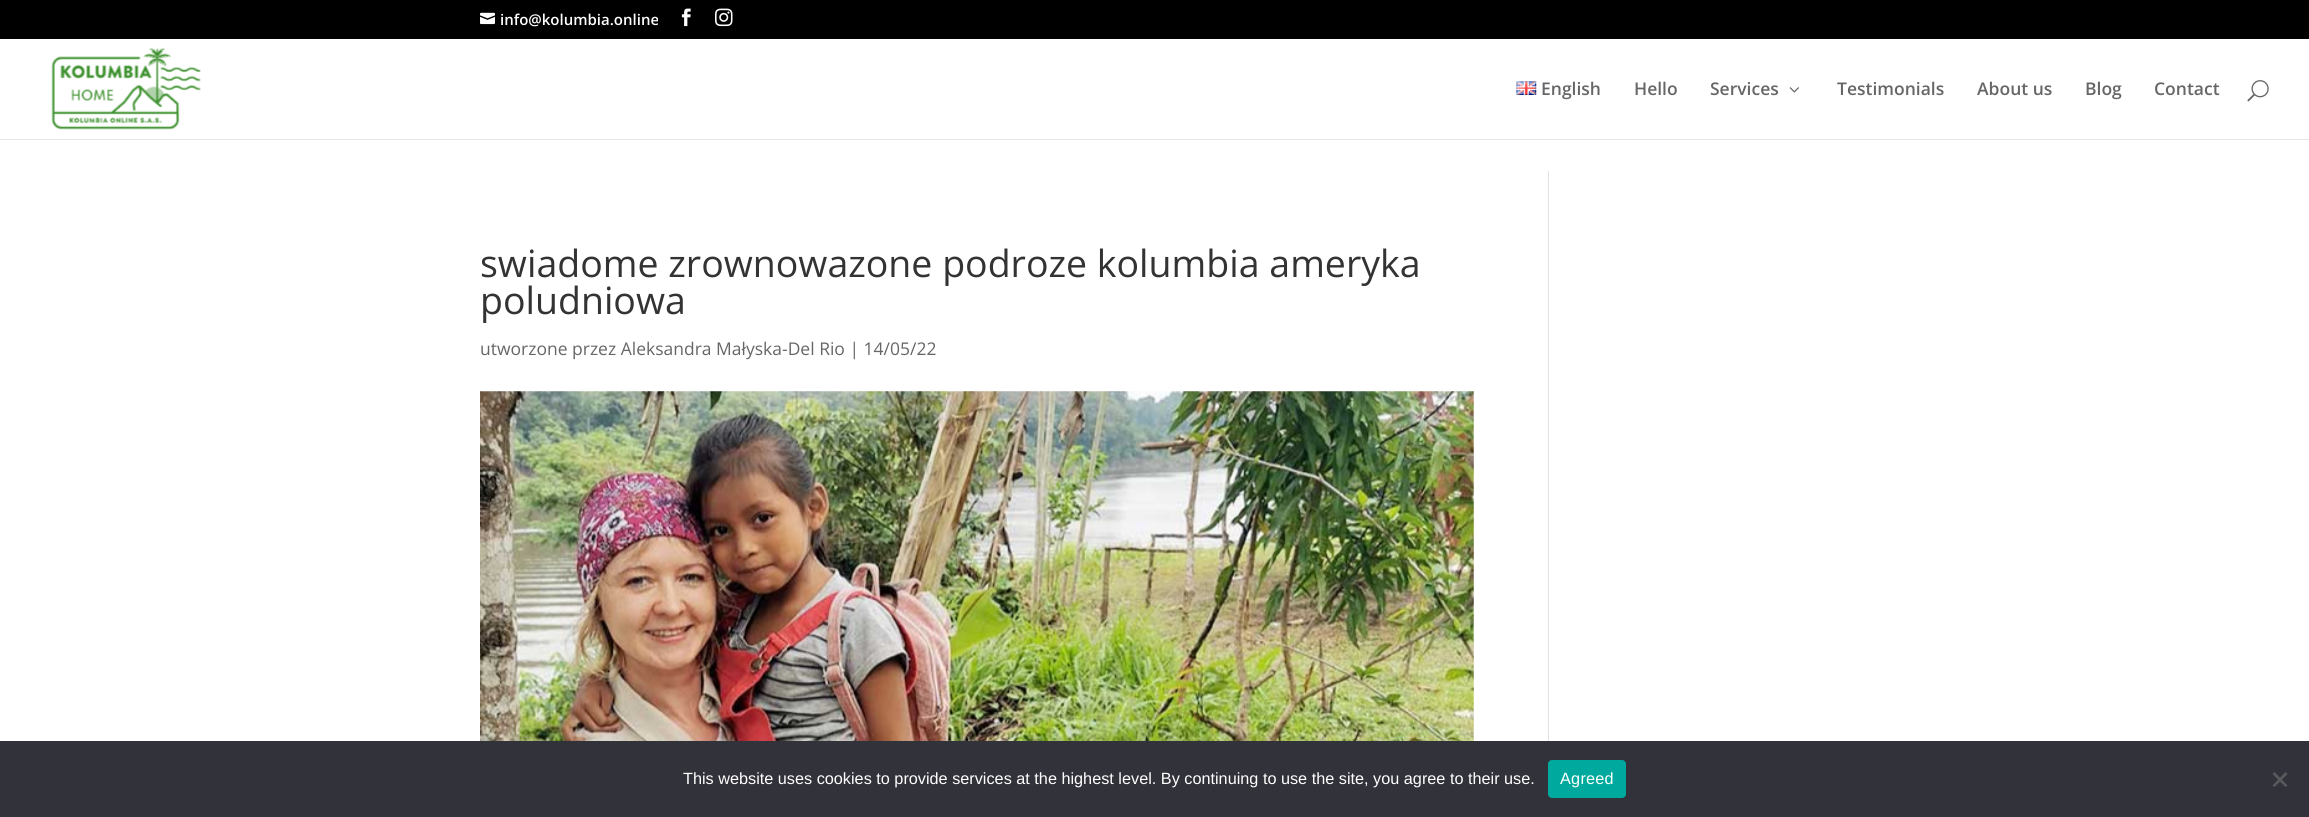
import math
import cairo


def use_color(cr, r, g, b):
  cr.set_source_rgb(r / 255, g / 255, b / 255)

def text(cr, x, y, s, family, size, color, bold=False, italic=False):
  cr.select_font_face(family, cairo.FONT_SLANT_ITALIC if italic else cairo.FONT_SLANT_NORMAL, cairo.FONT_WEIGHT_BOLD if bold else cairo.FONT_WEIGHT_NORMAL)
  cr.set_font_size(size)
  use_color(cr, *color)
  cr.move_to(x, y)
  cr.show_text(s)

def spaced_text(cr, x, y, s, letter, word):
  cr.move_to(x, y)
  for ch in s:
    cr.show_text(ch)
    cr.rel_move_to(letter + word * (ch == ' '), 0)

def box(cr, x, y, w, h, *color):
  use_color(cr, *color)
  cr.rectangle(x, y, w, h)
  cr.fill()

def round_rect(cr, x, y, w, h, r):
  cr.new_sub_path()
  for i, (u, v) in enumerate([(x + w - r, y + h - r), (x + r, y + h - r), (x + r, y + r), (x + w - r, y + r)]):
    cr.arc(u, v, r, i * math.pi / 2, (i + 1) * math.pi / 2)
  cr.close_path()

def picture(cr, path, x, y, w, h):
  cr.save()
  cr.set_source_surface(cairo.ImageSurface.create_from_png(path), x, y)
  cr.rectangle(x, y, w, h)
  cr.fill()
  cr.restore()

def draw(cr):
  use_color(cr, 255, 255, 255)
  cr.paint()
  box(cr, 0, 0, 2309, 39, 0, 0, 0)
  picture(cr, "img_01.png", 480, 12, 15, 13)
  picture(cr, "img_02.png", 681, 8, 10, 19)
  picture(cr, "img_03.png", 715, 8, 18, 19)
  box(cr, 0, 139, 2309, 1, 230, 230, 230)
  picture(cr, "img_04.png", 51, 47, 150, 83)
  picture(cr, "img_05.png", 1516, 81, 21, 14)
  picture(cr, "img_06.png", 1789, 87, 10, 6)
  picture(cr, "img_07.png", 2247, 80, 22, 22)
  picture(cr, "img_08.png", 480, 391, 994, 350)
  box(cr, 1548, 171, 1, 570, 226, 226, 226)
  box(cr, 0, 741, 2309, 76, 50, 50, 58)
  use_color(cr, 0, 169, 157)
  round_rect(cr, 1548, 760, 78, 38, 4)
  cr.fill()
  use_color(cr, 89, 89, 93)
  cr.new_path()
  cr.move_to(2285.5, 772)
  cr.line_to(2287.5, 774)
  cr.line_to(2274.5, 787)
  cr.line_to(2272.5, 785.5)
  cr.close_path()
  cr.fill()
  cr.new_path()
  cr.move_to(2272.5, 774)
  cr.line_to(2274.5, 772)
  cr.line_to(2287.5, 785.5)
  cr.line_to(2285.5, 787)
  cr.close_path()
  cr.fill()
  text(cr, 500, 25, "info@kolumbia.online", "Open Sans SemiBold", 15, (255, 255, 255))
  text(cr, 1541, 95, "English", "Open Sans SemiBold", 17.5, (102, 102, 102))
  text(cr, 1634, 95, "Hello", "Open Sans SemiBold", 17.5, (102, 102, 102))
  text(cr, 1710, 95, "Services", "Open Sans SemiBold", 17.5, (102, 102, 102))
  text(cr, 1837, 95, "Testimonials", "Open Sans SemiBold", 17.5, (102, 102, 102))
  text(cr, 1977, 95, "About us", "Open Sans SemiBold", 17.5, (102, 102, 102))
  text(cr, 2085, 95, "Blog", "Open Sans SemiBold", 17.5, (102, 102, 102))
  text(cr, 2154, 95, "Contact", "Open Sans SemiBold", 17.5, (102, 102, 102))
  text(cr, 480, 277, "swiadome zrownowazone podroze kolumbia ameryka", "Open Sans", 37.5, (51, 51, 51))
  text(cr, 480, 314, "poludniowa", "Open Sans", 37.5, (51, 51, 51))
  text(cr, 480, 355, "utworzone przez Aleksandra Małyska-Del Rio | 14/05/22", "Open Sans", 17.5, (102, 102, 102))
  text(cr, 683, 784, "This website uses cookies to provide services at the highest level. By continuing to use the site, you agree to their use.", "Liberation Sans", 16.25, (255, 255, 255))
  spaced_text(cr, 1560, 784, "Agreed", 0.25, 0)


surface = cairo.ImageSurface(cairo.FORMAT_RGB24, 2309, 817)
cr = cairo.Context(surface)
options = cairo.FontOptions()
options.set_hint_metrics(cairo.HINT_METRICS_OFF)
options.set_hint_style(cairo.HINT_STYLE_NONE)
cr.set_font_options(options)
cr.set_miter_limit(4)
draw(cr)
surface.write_to_png("out.png")
